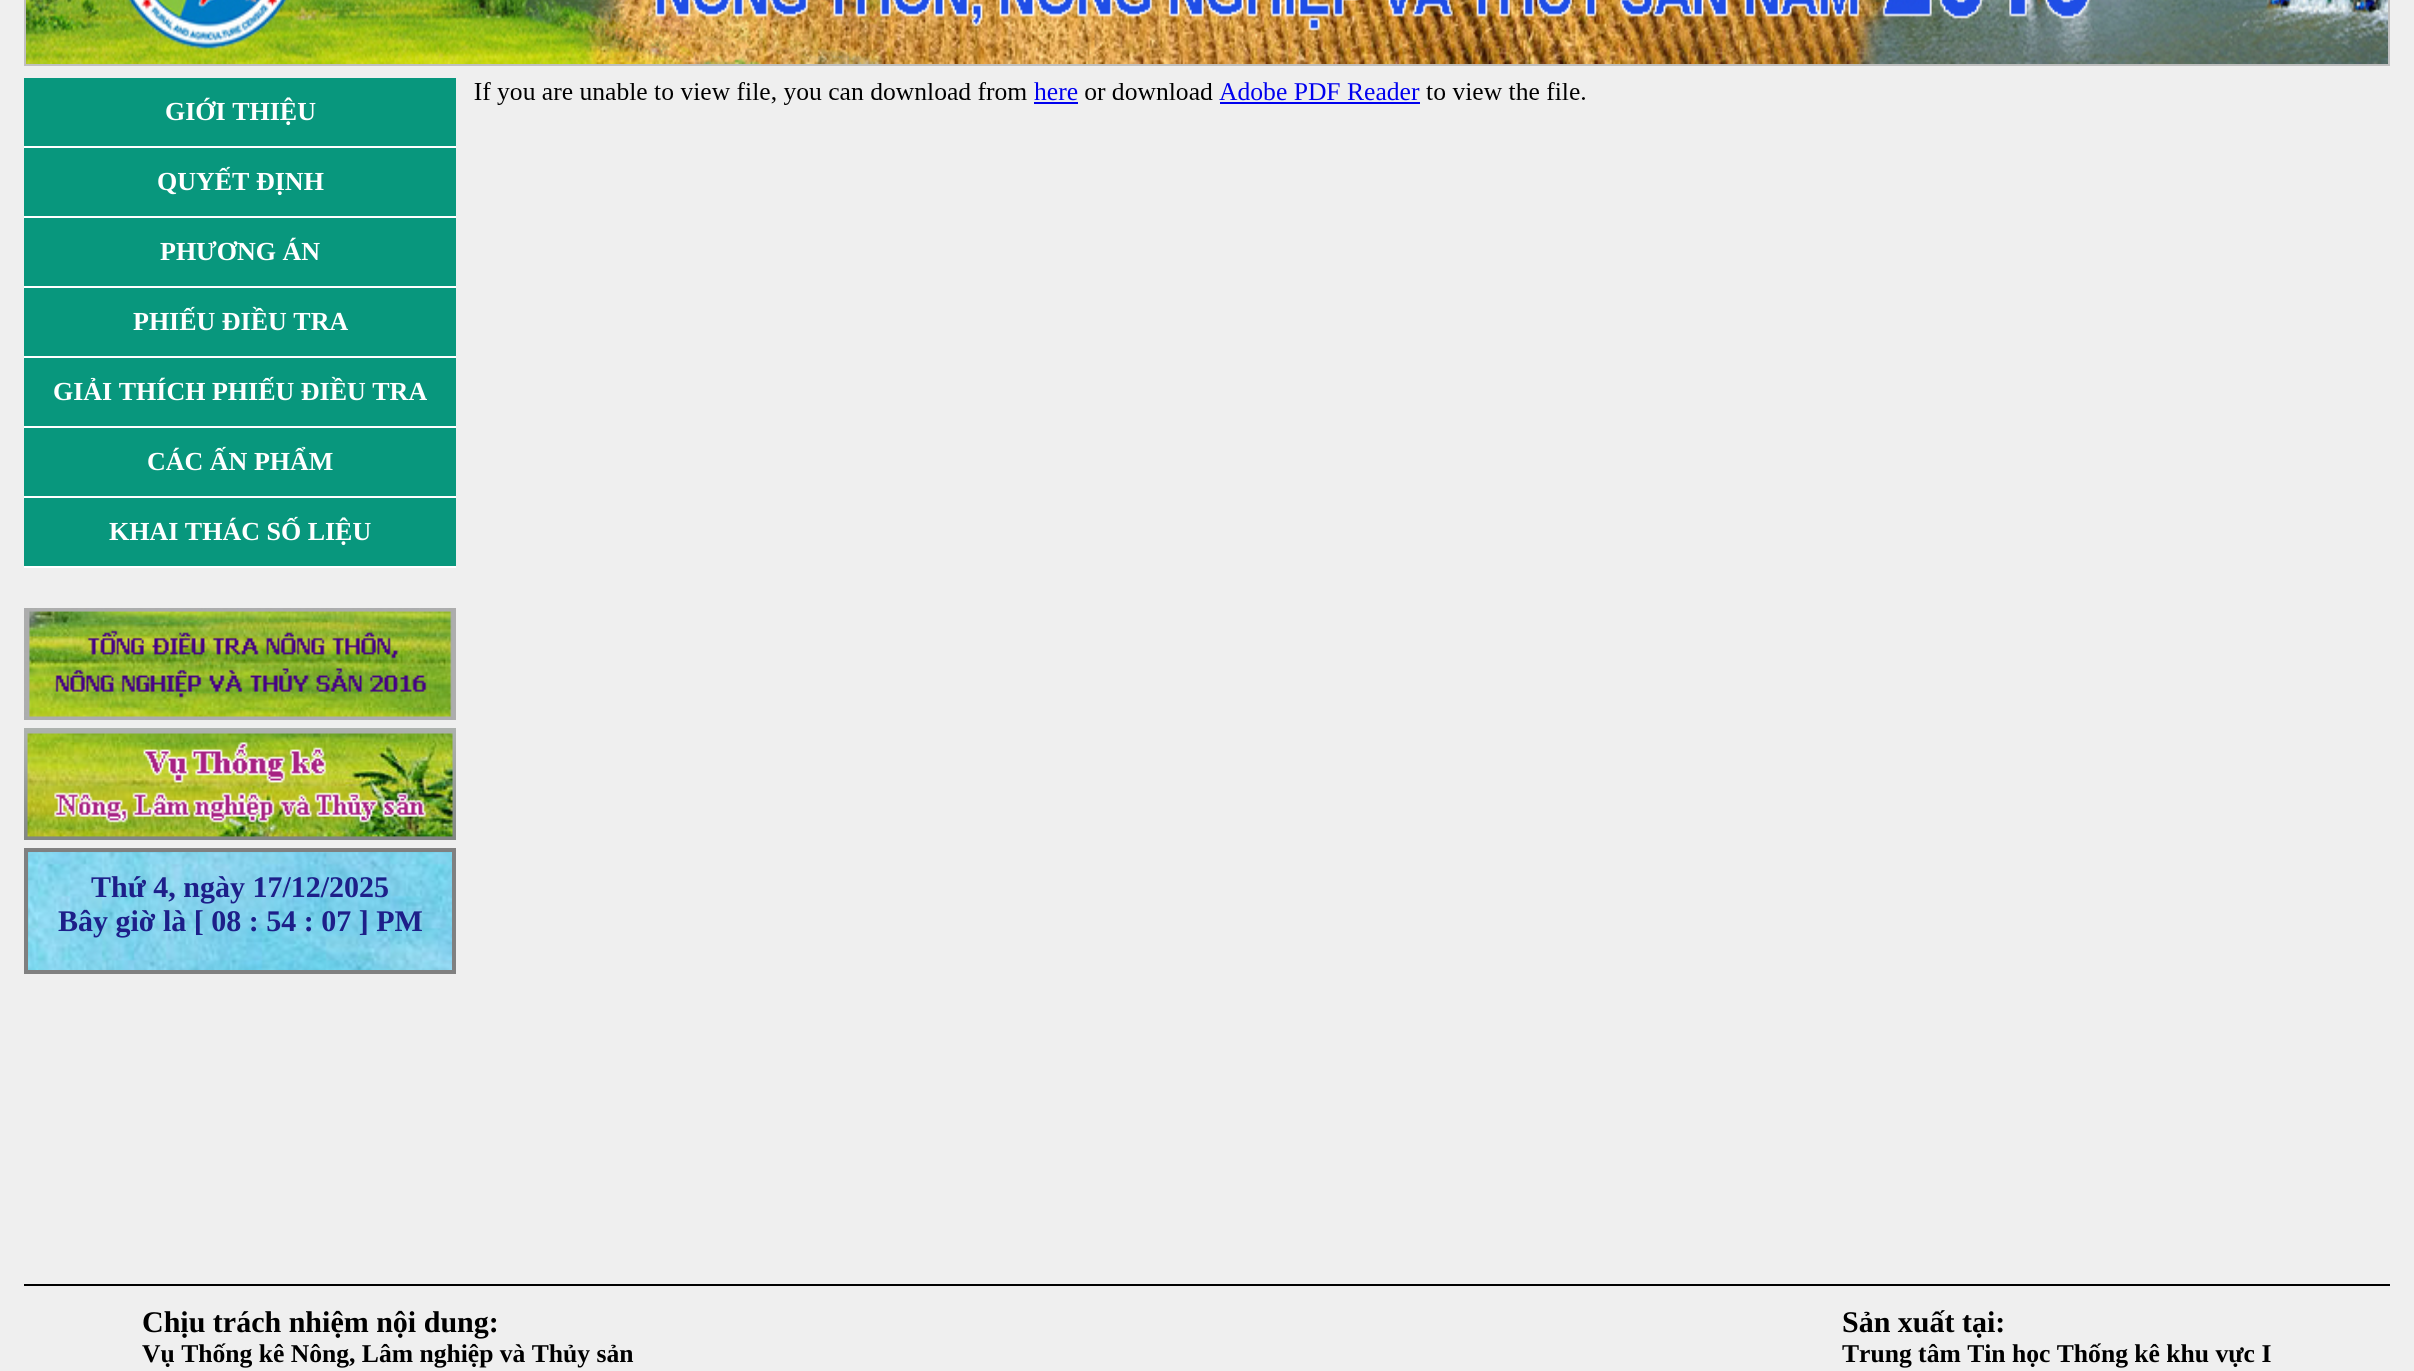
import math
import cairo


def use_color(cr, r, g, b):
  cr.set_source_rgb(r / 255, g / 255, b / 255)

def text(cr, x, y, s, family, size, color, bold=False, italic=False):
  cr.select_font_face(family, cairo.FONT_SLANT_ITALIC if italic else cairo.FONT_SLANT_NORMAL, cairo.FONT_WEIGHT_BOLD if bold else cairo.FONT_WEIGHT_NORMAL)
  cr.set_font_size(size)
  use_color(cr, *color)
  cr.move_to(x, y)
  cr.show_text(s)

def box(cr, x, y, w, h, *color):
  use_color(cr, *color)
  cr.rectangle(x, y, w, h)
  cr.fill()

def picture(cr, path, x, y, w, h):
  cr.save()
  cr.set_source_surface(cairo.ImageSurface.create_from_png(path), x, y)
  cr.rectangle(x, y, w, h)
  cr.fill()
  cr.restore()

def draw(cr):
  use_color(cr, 239, 239, 239)
  cr.paint()
  cr.rectangle(25, -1, 2364, 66)
  use_color(cr, 192, 192, 192)
  cr.stroke()
  picture(cr, "img_01.png", 26, 0, 2362, 64)
  picture(cr, "img_02.png", 474, 82, 1111, 23)
  box(cr, 1034, 102, 44, 2, 0, 0, 238)
  box(cr, 1220, 102, 200, 2, 0, 0, 238)
  box(cr, 24, 78, 432, 68, 8, 151, 125)
  box(cr, 24, 146, 432, 2, 255, 255, 255)
  box(cr, 24, 148, 432, 68, 8, 151, 125)
  box(cr, 24, 216, 432, 2, 255, 255, 255)
  box(cr, 24, 218, 432, 68, 8, 151, 125)
  box(cr, 24, 286, 432, 2, 255, 255, 255)
  box(cr, 24, 288, 432, 68, 8, 151, 125)
  box(cr, 24, 356, 432, 2, 255, 255, 255)
  box(cr, 24, 358, 432, 68, 8, 151, 125)
  box(cr, 24, 426, 432, 2, 255, 255, 255)
  box(cr, 24, 428, 432, 68, 8, 151, 125)
  box(cr, 24, 496, 432, 2, 255, 255, 255)
  box(cr, 24, 498, 432, 68, 8, 151, 125)
  box(cr, 24, 566, 432, 2, 255, 255, 255)
  picture(cr, "img_03.png", 24, 608, 432, 112)
  picture(cr, "img_04.png", 24, 728, 432, 112)
  picture(cr, "img_05.png", 28, 852, 424, 118)
  cr.rectangle(26, 850, 428, 122)
  use_color(cr, 128, 128, 128)
  cr.set_line_width(4)
  cr.stroke()
  box(cr, 24, 1284, 2366, 2, 0, 0, 0)
  text(cr, 1034, 100, "here", "Liberation Serif", 25.6, (0, 0, 238))
  text(cr, 1219, 100, "Adobe PDF Reader", "Liberation Serif", 25.6, (0, 0, 238))
  text(cr, 165, 120, "GIỚI THIỆU", "Liberation Serif", 26, (255, 255, 255), bold=True)
  text(cr, 157, 190, "QUYẾT ĐỊNH", "Liberation Serif", 26, (255, 255, 255), bold=True)
  text(cr, 160, 260, "PHƯƠNG ÁN", "Liberation Serif", 26, (255, 255, 255), bold=True)
  text(cr, 133, 330, "PHIẾU ĐIỀU TRA", "Liberation Serif", 26, (255, 255, 255), bold=True)
  text(cr, 53, 400, "GIẢI THÍCH PHIẾU ĐIỀU TRA", "Liberation Serif", 26, (255, 255, 255), bold=True)
  text(cr, 147, 470, "CÁC ẤN PHẨM", "Liberation Serif", 26, (255, 255, 255), bold=True)
  text(cr, 109, 540, "KHAI THÁC SỐ LIỆU", "Liberation Serif", 26, (255, 255, 255), bold=True)
  text(cr, 91, 897, "Thứ 4, ngày 17/12/2025", "Liberation Serif", 30, (29, 31, 137), bold=True)
  text(cr, 58, 931, "Bây giờ là [ 08 : 54 : 07 ] PM", "Liberation Serif", 30, (29, 31, 137), bold=True)
  text(cr, 142, 1332, "Chịu trách nhiệm nội dung:", "Liberation Serif", 30, (0, 0, 0), bold=True)
  text(cr, 142, 1362, "Vụ Thống kê Nông, Lâm nghiệp và Thủy sản", "Liberation Serif", 25.6, (0, 0, 0), bold=True)
  text(cr, 1842, 1332, "Sản xuất tại:", "Liberation Serif", 30, (0, 0, 0), bold=True)
  text(cr, 1842, 1362, "Trung tâm Tin học Thống kê khu vực I", "Liberation Serif", 25.6, (0, 0, 0), bold=True)


surface = cairo.ImageSurface(cairo.FORMAT_RGB24, 2414, 1371)
cr = cairo.Context(surface)
options = cairo.FontOptions()
options.set_hint_metrics(cairo.HINT_METRICS_OFF)
options.set_hint_style(cairo.HINT_STYLE_NONE)
cr.set_font_options(options)
cr.set_miter_limit(4)
draw(cr)
surface.write_to_png("out.png")
